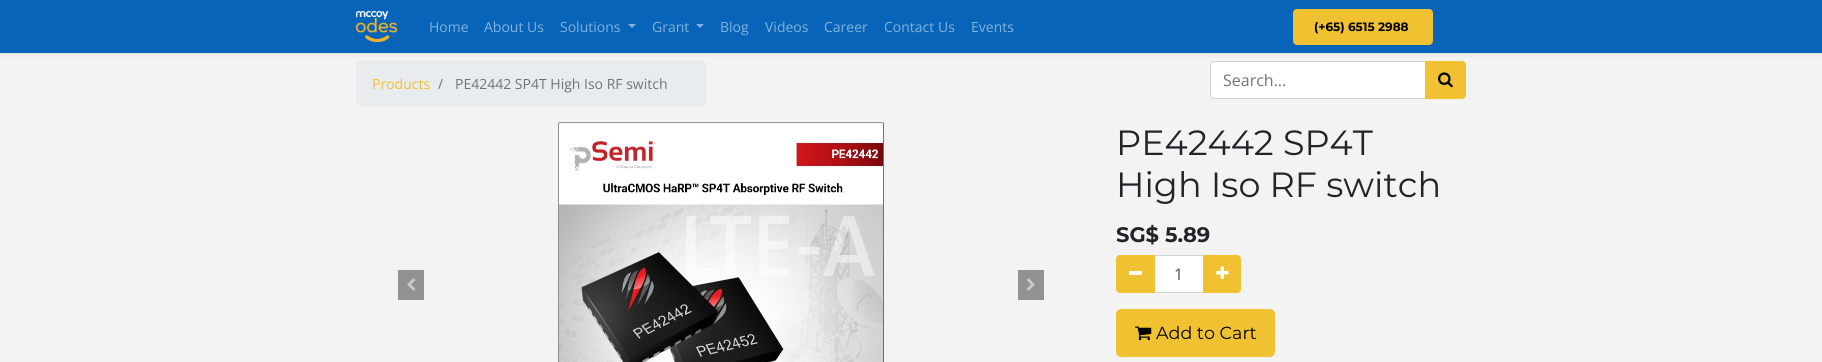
import math
import cairo


def use_color(cr, r, g, b):
  cr.set_source_rgb(r / 255, g / 255, b / 255)

def text(cr, x, y, s, family, size, color, bold=False, italic=False):
  cr.select_font_face(family, cairo.FONT_SLANT_ITALIC if italic else cairo.FONT_SLANT_NORMAL, cairo.FONT_WEIGHT_BOLD if bold else cairo.FONT_WEIGHT_NORMAL)
  cr.set_font_size(size)
  use_color(cr, *color)
  cr.move_to(x, y)
  cr.show_text(s)

def box(cr, x, y, w, h, *color):
  use_color(cr, *color)
  cr.rectangle(x, y, w, h)
  cr.fill()

def round_rect(cr, x, y, w, h, r):
  cr.new_sub_path()
  for i, (u, v) in enumerate([(x + w - r, y + h - r), (x + r, y + h - r), (x + r, y + r), (x + w - r, y + r)]):
    cr.arc(u, v, r, i * math.pi / 2, (i + 1) * math.pi / 2)
  cr.close_path()

def shadow(cr, x, y, w, h, r, blur, alpha):
  cr.push_group_with_content(cairo.CONTENT_ALPHA)
  cr.set_operator(cairo.OPERATOR_SOURCE)
  for i in range(15, -16, -2):
    e = blur * i / 6
    if min(w, h) + 2 * e > 0:
      cr.set_source_rgba(0, 0, 0, alpha * math.erfc((i - 1) / 8.5) / 2)
      round_rect(cr, x - e, y - e, w + 2 * e, h + 2 * e, max(0, min(r + e + blur * .6, min(w, h) / 2 + e)))
      cr.fill()
  cr.mask(cr.pop_group())

def picture(cr, path, x, y, w, h):
  cr.save()
  cr.set_source_surface(cairo.ImageSurface.create_from_png(path), x, y)
  cr.rectangle(x, y, w, h)
  cr.fill()
  cr.restore()

def draw(cr):
  use_color(cr, 243, 243, 243)
  cr.paint()
  use_color(cr, 233, 236, 239)
  round_rect(cr, 356, 61, 350, 45, 4)
  cr.fill()
  use_color(cr, 255, 255, 255)
  cr.new_path()
  cr.move_to(1214, 61.5)
  cr.line_to(1425.5, 61.5)
  cr.line_to(1425.5, 98.5)
  cr.line_to(1214, 98.5)
  cr.curve_to(1212, 98.5, 1210.5, 97, 1210.5, 95)
  cr.line_to(1210.5, 65)
  cr.curve_to(1210.5, 63, 1212, 61.5, 1214, 61.5)
  cr.close_path()
  cr.fill_preserve()
  use_color(cr, 206, 212, 218)
  cr.set_line_width(1)
  cr.stroke()
  use_color(cr, 240, 193, 48)
  cr.new_path()
  cr.move_to(1425.5, 61.5)
  cr.line_to(1462, 61.5)
  cr.curve_to(1464, 61.5, 1465.5, 63, 1465.5, 65)
  cr.line_to(1465.5, 95)
  cr.curve_to(1465.5, 97, 1464, 98.5, 1462, 98.5)
  cr.line_to(1425.5, 98.5)
  cr.close_path()
  cr.fill_preserve()
  cr.stroke()
  use_color(cr, 0, 0, 0)
  shadow(cr, 0, 2, 1822, 53, 0, 2, 0.07)
  box(cr, 0, 0, 1822, 53, 7, 100, 184)
  picture(cr, "img_01.png", 356, 11, 41, 31)
  use_color(cr, 131, 178, 220)
  cr.new_path()
  cr.move_to(628, 24)
  cr.line_to(636, 24)
  cr.line_to(632, 28)
  cr.close_path()
  cr.fill()
  cr.new_path()
  cr.move_to(696, 24)
  cr.line_to(704, 24)
  cr.line_to(700, 28)
  cr.close_path()
  cr.fill()
  use_color(cr, 240, 193, 48)
  round_rect(cr, 1294.5, 10.5, 137, 33, 2.5)
  cr.fill_preserve()
  cr.set_line_width(3)
  cr.stroke()
  picture(cr, "img_02.png", 1438, 72, 15, 16)
  box(cr, 398, 270, 26, 30, 146, 146, 146)
  picture(cr, "img_03.png", 407, 278, 9, 13)
  picture(cr, "img_04.png", 558, 122, 326, 240)
  box(cr, 1018, 270, 26, 30, 146, 146, 146)
  picture(cr, "img_05.png", 1026, 278, 9, 13)
  use_color(cr, 255, 255, 255)
  cr.rectangle(1154.5, 255.5, 49, 37)
  cr.fill_preserve()
  use_color(cr, 206, 212, 218)
  cr.set_line_width(1)
  cr.stroke()
  use_color(cr, 240, 193, 48)
  cr.new_path()
  cr.move_to(1120, 255.5)
  cr.line_to(1154.5, 255.5)
  cr.line_to(1154.5, 292.5)
  cr.line_to(1120, 292.5)
  cr.curve_to(1118, 292.5, 1116.5, 291, 1116.5, 289)
  cr.line_to(1116.5, 259)
  cr.curve_to(1116.5, 257, 1118, 255.5, 1120, 255.5)
  cr.close_path()
  cr.fill_preserve()
  cr.stroke()
  box(cr, 1129, 271, 13, 4, 255, 255, 255)
  use_color(cr, 240, 193, 48)
  cr.new_path()
  cr.move_to(1203.5, 255.5)
  cr.line_to(1237, 255.5)
  cr.curve_to(1239, 255.5, 1240.5, 257, 1240.5, 259)
  cr.line_to(1240.5, 289)
  cr.curve_to(1240.5, 291, 1239, 292.5, 1237, 292.5)
  cr.line_to(1203.5, 292.5)
  cr.close_path()
  cr.fill_preserve()
  cr.stroke()
  picture(cr, "img_06.png", 1216, 266, 13, 13)
  round_rect(cr, 1117.5, 310.5, 156, 45, 3.5)
  cr.fill_preserve()
  cr.set_line_width(3)
  cr.stroke()
  picture(cr, "img_07.png", 1135, 326, 17, 15)
  text(cr, 429, 32, "Home", "Open Sans", 14, (131, 178, 220))
  text(cr, 484, 32, "About Us", "Open Sans", 14, (131, 178, 220))
  text(cr, 560, 32, "Solutions", "Open Sans", 14, (131, 178, 220))
  text(cr, 652, 32, "Grant", "Open Sans", 14, (131, 178, 220))
  text(cr, 720, 32, "Blog", "Open Sans", 14, (131, 178, 220))
  text(cr, 765, 32, "Videos", "Open Sans", 14, (131, 178, 220))
  text(cr, 824, 32, "Career", "Open Sans", 14, (131, 178, 220))
  text(cr, 884, 32, "Contact Us", "Open Sans", 14, (131, 178, 220))
  text(cr, 971, 32, "Events", "Open Sans", 14, (131, 178, 220))
  text(cr, 1314, 31, "(+65) 6515 2988", "Montserrat", 12, (0, 0, 0), bold=True)
  text(cr, 372, 89, "Products", "Open Sans", 14, (240, 193, 48))
  text(cr, 438, 89, "/", "Open Sans", 14, (108, 117, 125))
  text(cr, 455, 89, "PE42442 SP4T High Iso RF switch", "Open Sans", 14, (108, 117, 125))
  text(cr, 1223, 86, "Search...", "Open Sans", 16, (108, 117, 125))
  text(cr, 1116, 155, "PE42442 SP4T", "Montserrat", 35, (33, 37, 41))
  text(cr, 1116, 197, "High Iso RF switch", "Montserrat", 35, (33, 37, 41))
  text(cr, 1116, 242, "SG$ 5.89", "Montserrat", 21, (33, 37, 41), bold=True)
  text(cr, 1174, 280, "1", "Open Sans", 16, (73, 80, 87))
  text(cr, 1156, 339, "Add to Cart", "Montserrat", 17.5, (0, 0, 0))


surface = cairo.ImageSurface(cairo.FORMAT_RGB24, 1822, 362)
cr = cairo.Context(surface)
options = cairo.FontOptions()
options.set_hint_metrics(cairo.HINT_METRICS_OFF)
options.set_hint_style(cairo.HINT_STYLE_NONE)
cr.set_font_options(options)
cr.set_miter_limit(4)
draw(cr)
surface.write_to_png("out.png")
